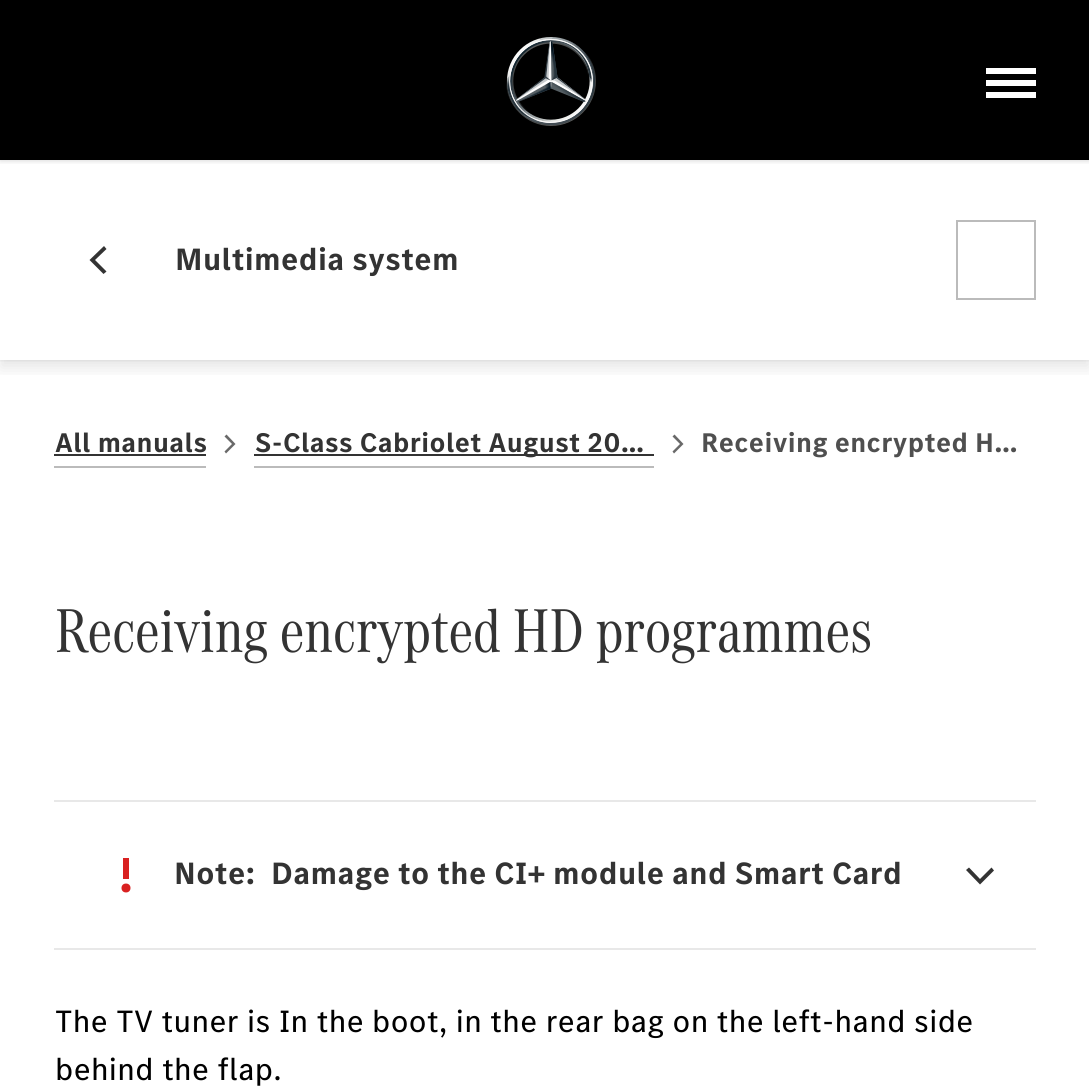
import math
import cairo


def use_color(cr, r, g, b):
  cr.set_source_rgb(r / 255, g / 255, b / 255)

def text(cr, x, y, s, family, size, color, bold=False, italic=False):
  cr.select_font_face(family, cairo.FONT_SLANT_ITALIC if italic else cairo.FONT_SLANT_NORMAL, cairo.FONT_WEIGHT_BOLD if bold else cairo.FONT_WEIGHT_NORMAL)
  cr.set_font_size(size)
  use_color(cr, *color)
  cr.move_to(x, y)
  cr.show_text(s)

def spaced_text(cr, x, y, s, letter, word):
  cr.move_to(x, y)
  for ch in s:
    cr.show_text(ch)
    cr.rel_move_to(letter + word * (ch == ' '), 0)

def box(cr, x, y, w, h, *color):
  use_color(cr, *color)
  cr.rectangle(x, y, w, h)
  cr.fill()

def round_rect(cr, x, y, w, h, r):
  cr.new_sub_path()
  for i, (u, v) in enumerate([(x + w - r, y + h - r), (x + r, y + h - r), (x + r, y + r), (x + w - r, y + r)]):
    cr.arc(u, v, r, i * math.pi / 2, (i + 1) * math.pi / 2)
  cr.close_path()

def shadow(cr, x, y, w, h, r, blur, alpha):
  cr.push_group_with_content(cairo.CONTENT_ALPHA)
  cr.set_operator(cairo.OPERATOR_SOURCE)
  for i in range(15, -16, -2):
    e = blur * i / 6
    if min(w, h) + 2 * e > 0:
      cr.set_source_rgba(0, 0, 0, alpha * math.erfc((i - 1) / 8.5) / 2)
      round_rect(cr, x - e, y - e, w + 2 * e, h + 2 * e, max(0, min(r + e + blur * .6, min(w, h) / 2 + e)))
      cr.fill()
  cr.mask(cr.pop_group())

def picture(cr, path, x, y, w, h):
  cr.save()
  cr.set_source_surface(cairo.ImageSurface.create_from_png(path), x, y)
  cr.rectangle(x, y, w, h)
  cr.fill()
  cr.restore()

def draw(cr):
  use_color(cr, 255, 255, 255)
  cr.paint()
  cr.save()
  cr.rectangle(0, 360, 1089, 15)
  cr.clip()
  use_color(cr, 0, 0, 0)
  shadow(cr, 0, 168, 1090, 200, 0, 8, 0.1)
  cr.restore()
  cr.save()
  cr.rectangle(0, 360, 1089, 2)
  cr.clip()
  use_color(cr, 0, 0, 0)
  shadow(cr, 0, 160, 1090, 200, 0, 2, 0.1)
  cr.restore()
  box(cr, 0, 0, 1089, 160, 0, 0, 0)
  cr.save()
  cr.rectangle(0, 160, 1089, 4)
  cr.clip()
  use_color(cr, 0, 0, 0)
  shadow(cr, 0, 0, 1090, 160, 0, 3, 0.2)
  cr.restore()
  picture(cr, "img_01.png", 506, 37, 90, 89)
  box(cr, 986, 92, 50, 6, 255, 255, 255)
  box(cr, 986, 68, 50, 6, 255, 255, 255)
  box(cr, 986, 80, 50, 6, 255, 255, 255)
  use_color(cr, 51, 51, 51)
  cr.new_path()
  cr.move_to(103.5, 274)
  cr.line_to(106.5, 271.5)
  cr.line_to(95, 260)
  cr.line_to(106.5, 249)
  cr.line_to(104, 246)
  cr.line_to(89.5, 260)
  cr.close_path()
  cr.fill()
  cr.rectangle(957, 221, 78, 78)
  use_color(cr, 187, 187, 187)
  cr.stroke()
  box(cr, 54, 466, 152, 2, 187, 187, 187)
  box(cr, 54, 454, 152, 2, 51, 51, 51)
  use_color(cr, 105, 105, 105)
  cr.new_path()
  cr.move_to(226.5, 434.5)
  cr.line_to(224.5, 436.5)
  cr.line_to(232, 444)
  cr.line_to(224.5, 451.5)
  cr.line_to(226, 453.5)
  cr.line_to(235.5, 444)
  cr.close_path()
  cr.fill()
  box(cr, 254, 466, 400, 2, 187, 187, 187)
  box(cr, 254, 454, 400, 2, 51, 51, 51)
  use_color(cr, 105, 105, 105)
  cr.new_path()
  cr.move_to(674.5, 434.5)
  cr.line_to(672.5, 436.5)
  cr.line_to(680, 444)
  cr.line_to(672.5, 451.5)
  cr.line_to(674, 453.5)
  cr.line_to(683.5, 444)
  cr.close_path()
  cr.fill()
  box(cr, 54, 800, 982, 2, 232, 232, 232)
  box(cr, 123, 858, 6, 21, 217, 33, 33)
  cr.arc(126, 888, 4.5, 0, 2 * math.pi)
  cr.fill()
  use_color(cr, 51, 51, 51)
  cr.new_path()
  cr.move_to(994, 870.5)
  cr.line_to(991.5, 867.5)
  cr.line_to(980, 879)
  cr.line_to(969, 867.5)
  cr.line_to(966, 870)
  cr.line_to(980, 884.5)
  cr.close_path()
  cr.fill()
  box(cr, 54, 948, 982, 2, 232, 232, 232)
  cr.select_font_face("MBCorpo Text", cairo.FONT_SLANT_NORMAL, cairo.FONT_WEIGHT_BOLD)
  cr.set_font_size(32)
  use_color(cr, 51, 51, 51)
  spaced_text(cr, 175, 270, "Multimedia system", 0.4, 0)
  cr.set_font_size(28)
  spaced_text(cr, 55, 452, "All manuals", 0.4, 0)
  spaced_text(cr, 255, 452, "S-Class Cabriolet August 20…", 0.4, 0)
  use_color(cr, 79, 79, 79)
  spaced_text(cr, 701, 452, "Receiving encrypted H…", 0.4, 0)
  text(cr, 55, 652, "Receiving encrypted HD programmes", "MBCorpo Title", 64, (51, 51, 51))
  cr.select_font_face("MBCorpo Text", cairo.FONT_SLANT_NORMAL, cairo.FONT_WEIGHT_BOLD)
  cr.set_font_size(32)
  spaced_text(cr, 174, 884, "Note:", 0.4, 0)
  spaced_text(cr, 271, 884, "Damage to the CI+ module and Smart Card", 0.4, 0)
  cr.select_font_face("MBCorpo Text")
  use_color(cr, 0, 0, 0)
  spaced_text(cr, 55, 1032, "The TV tuner is In the boot, in the rear bag on the left-hand side", 0.4, 0)
  spaced_text(cr, 55, 1080, "behind the flap.", 0.4, 0)


surface = cairo.ImageSurface(cairo.FORMAT_RGB24, 1089, 1091)
cr = cairo.Context(surface)
options = cairo.FontOptions()
options.set_hint_metrics(cairo.HINT_METRICS_OFF)
options.set_hint_style(cairo.HINT_STYLE_NONE)
cr.set_font_options(options)
cr.set_miter_limit(4)
draw(cr)
surface.write_to_png("out.png")
